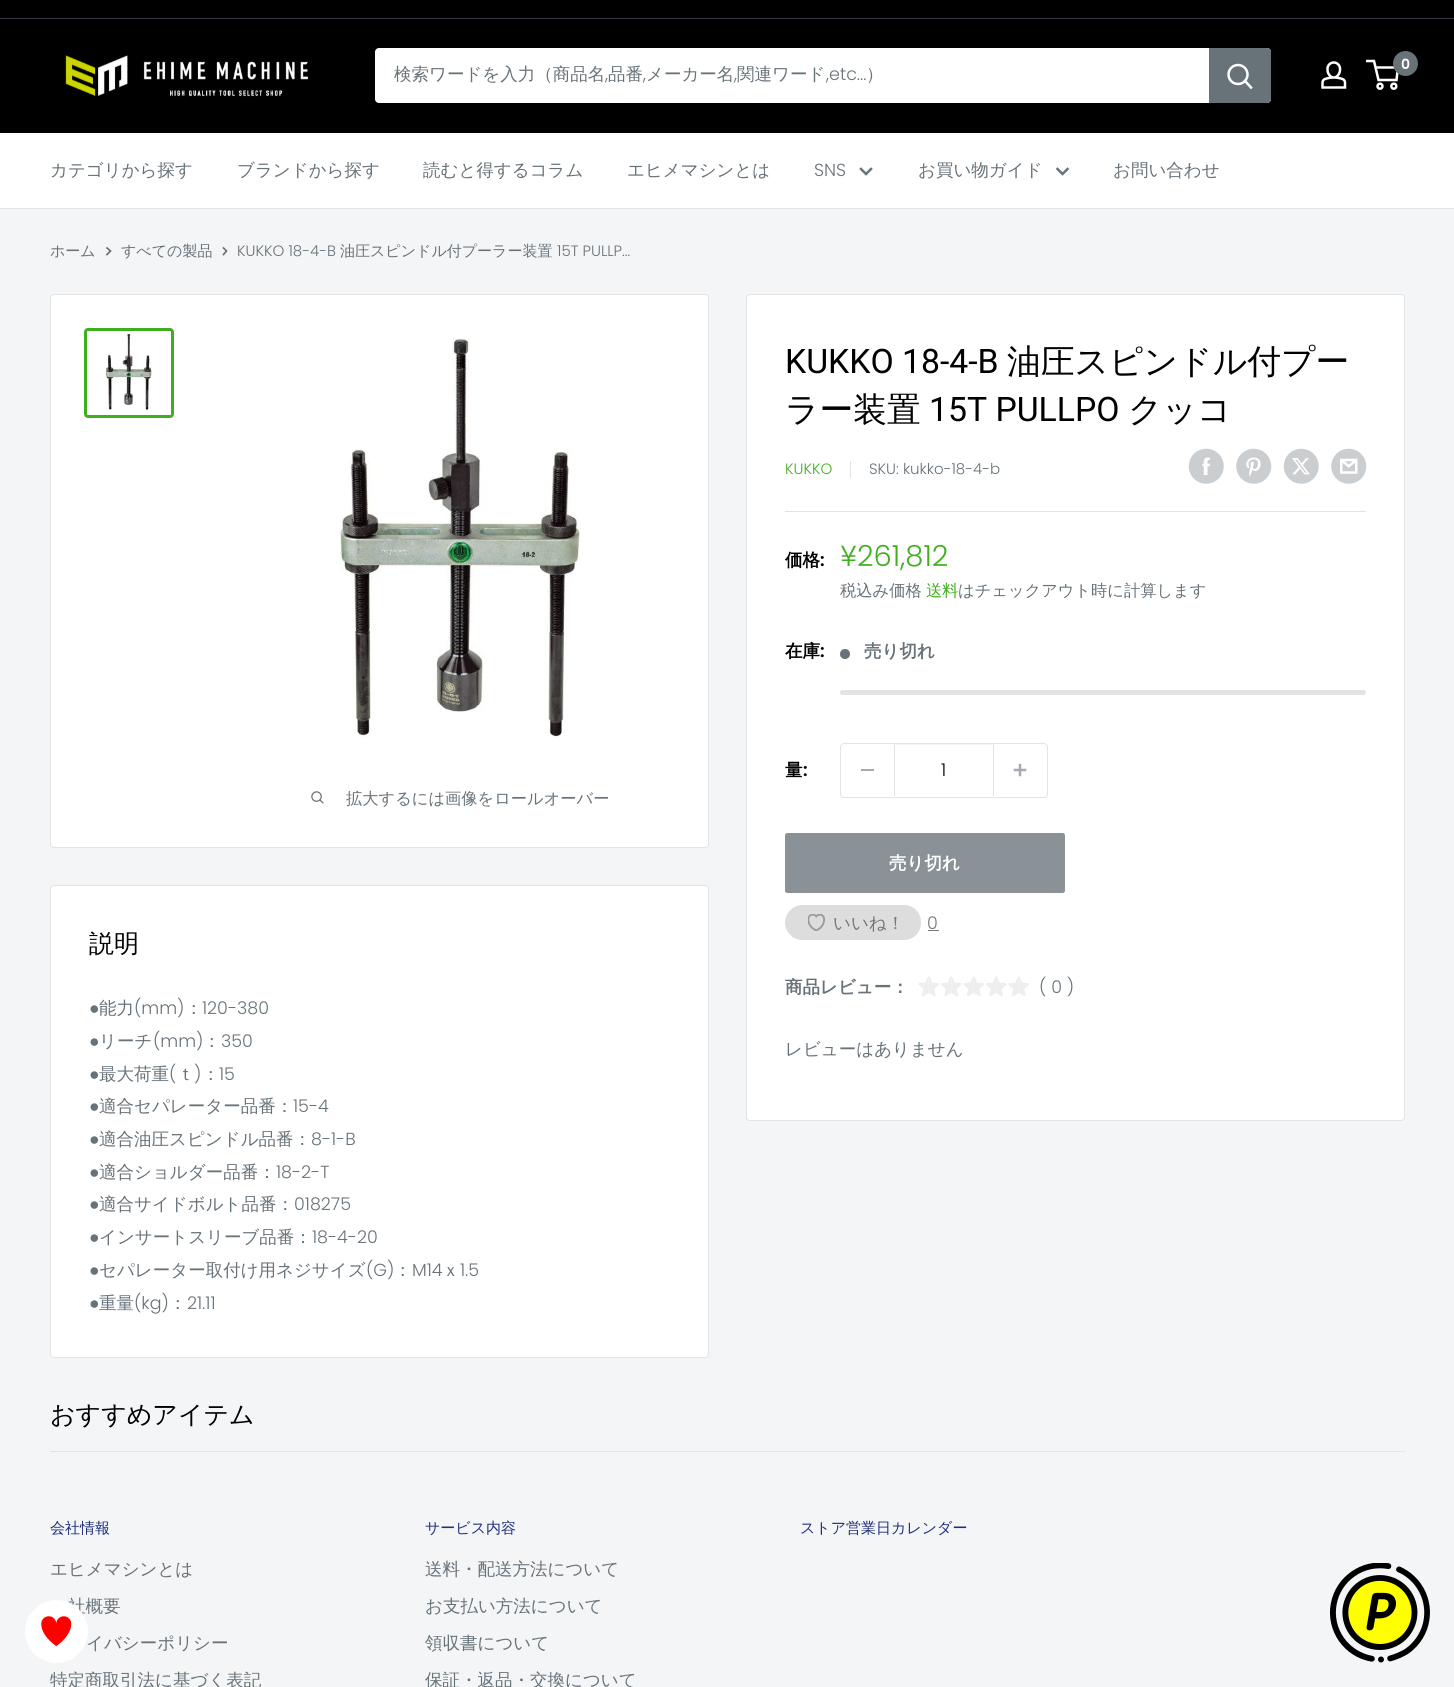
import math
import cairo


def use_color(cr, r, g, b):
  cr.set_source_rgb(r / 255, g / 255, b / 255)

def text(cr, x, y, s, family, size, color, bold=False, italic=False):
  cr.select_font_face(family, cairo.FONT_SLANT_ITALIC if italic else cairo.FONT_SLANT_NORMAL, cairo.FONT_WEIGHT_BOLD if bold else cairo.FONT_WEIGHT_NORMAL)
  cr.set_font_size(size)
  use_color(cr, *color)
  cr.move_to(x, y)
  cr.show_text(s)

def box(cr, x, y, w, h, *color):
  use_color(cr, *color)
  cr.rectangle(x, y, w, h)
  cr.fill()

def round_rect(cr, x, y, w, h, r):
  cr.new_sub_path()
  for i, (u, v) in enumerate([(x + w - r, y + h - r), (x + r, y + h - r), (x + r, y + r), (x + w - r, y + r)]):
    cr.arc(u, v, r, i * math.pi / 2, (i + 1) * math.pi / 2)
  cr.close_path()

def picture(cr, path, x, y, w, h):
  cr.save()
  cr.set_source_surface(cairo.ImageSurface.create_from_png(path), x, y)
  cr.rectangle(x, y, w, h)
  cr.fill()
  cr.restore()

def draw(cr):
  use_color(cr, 243, 245, 246)
  cr.paint()
  box(cr, 0, 0, 1454, 18, 0, 0, 0)
  box(cr, 0, 18, 1454, 1, 49, 53, 72)
  box(cr, 0, 19, 1454, 114, 0, 0, 0)
  picture(cr, "img_01.png", 65, 55, 243, 42)
  picture(cr, "img_02.png", 1321, 61, 26, 28)
  cr.arc(1380, 86.2, 2.5, 0, 2 * math.pi)
  use_color(cr, 255, 255, 255)
  cr.set_line_width(2.5)
  cr.stroke()
  cr.arc(1393.8, 86.2, 2.5, 0, 2 * math.pi)
  cr.stroke()
  cr.new_path()
  cr.move_to(1375.5, 67.5)
  cr.line_to(1398, 67.5)
  cr.line_to(1396.5, 80)
  cr.line_to(1378.5, 80)
  cr.line_to(1374, 61)
  cr.line_to(1366, 61)
  cr.stroke()
  use_color(cr, 103, 114, 121)
  cr.arc(1405.5, 63.5, 12.5, 0, 2 * math.pi)
  cr.fill()
  use_color(cr, 255, 255, 255)
  round_rect(cr, 375, 48, 896, 55, 4)
  cr.fill()
  use_color(cr, 103, 114, 121)
  cr.new_path()
  cr.move_to(1209, 48)
  cr.line_to(1267, 48)
  cr.curve_to(1269, 48, 1271, 50, 1271, 52)
  cr.line_to(1271, 99)
  cr.curve_to(1271, 101, 1269, 103, 1267, 103)
  cr.line_to(1209, 103)
  cr.close_path()
  cr.fill()
  cr.new_path()
  cr.move_to(1251, 87.5)
  cr.line_to(1245, 81)
  use_color(cr, 255, 255, 255)
  cr.set_line_cap(cairo.LINE_CAP_SQUARE)
  cr.stroke()
  cr.arc(1238, 74.5, 9.5, 0, 2 * math.pi)
  cr.set_line_cap(cairo.LINE_CAP_BUTT)
  cr.stroke()
  box(cr, 0, 133, 1454, 75, 255, 255, 255)
  box(cr, 0, 208, 1454, 1, 225, 227, 228)
  cr.new_path()
  cr.move_to(871, 169)
  cr.line_to(866, 174)
  cr.line_to(861, 169)
  use_color(cr, 103, 114, 121)
  cr.set_line_cap(cairo.LINE_CAP_SQUARE)
  cr.stroke()
  cr.new_path()
  cr.move_to(1067.5, 169)
  cr.line_to(1062.5, 174)
  cr.line_to(1057.5, 169)
  cr.stroke()
  cr.new_path()
  cr.move_to(107, 248)
  cr.line_to(110.5, 251)
  cr.line_to(107, 254.5)
  cr.set_line_width(1.7)
  cr.stroke()
  cr.new_path()
  cr.move_to(223.5, 248)
  cr.line_to(226.5, 251)
  cr.line_to(223.5, 254.5)
  cr.stroke()
  use_color(cr, 255, 255, 255)
  round_rect(cr, 50.5, 294.5, 658, 553, 3.5)
  cr.fill_preserve()
  use_color(cr, 225, 227, 228)
  cr.set_line_width(1)
  cr.set_line_cap(cairo.LINE_CAP_BUTT)
  cr.stroke()
  round_rect(cr, 85.5, 329.5, 87, 87, 2.5)
  use_color(cr, 64, 175, 31)
  cr.set_line_width(3)
  cr.stroke()
  picture(cr, "img_03.png", 105, 333, 48, 78)
  picture(cr, "img_04.png", 339, 338, 242, 400)
  picture(cr, "img_05.png", 311, 791, 13, 13)
  use_color(cr, 255, 255, 255)
  round_rect(cr, 746.5, 294.5, 658, 826, 3.5)
  cr.fill_preserve()
  use_color(cr, 225, 227, 228)
  cr.set_line_width(1)
  cr.stroke()
  box(cr, 850, 461, 1, 17, 225, 227, 228)
  picture(cr, "img_06.png", 1188, 448, 36, 36)
  picture(cr, "img_07.png", 1236, 448, 36, 36)
  picture(cr, "img_08.png", 1283, 448, 36, 36)
  picture(cr, "img_09.png", 1331, 448, 36, 36)
  box(cr, 785, 511, 581, 1, 225, 227, 228)
  use_color(cr, 103, 114, 121)
  cr.arc(845, 654, 5, 0, 2 * math.pi)
  cr.fill()
  use_color(cr, 225, 227, 228)
  round_rect(cr, 840, 690, 526, 5, 2.5)
  cr.fill()
  round_rect(cr, 840.5, 743.5, 207, 54, 3.5)
  cr.stroke()
  box(cr, 861, 769, 13, 2, 164, 170, 175)
  box(cr, 895, 744, 98, 1, 243, 244, 244)
  box(cr, 993, 744, 1, 52, 225, 227, 228)
  box(cr, 894, 744, 1, 52, 225, 227, 228)
  picture(cr, "img_10.png", 1013, 763, 14, 14)
  use_color(cr, 138, 146, 151)
  round_rect(cr, 785.5, 833.5, 279, 59, 2)
  cr.fill_preserve()
  cr.stroke()
  use_color(cr, 221, 221, 221)
  cr.new_path()
  cr.move_to(802.5, 905)
  cr.line_to(803, 905)
  cr.line_to(803, 940)
  cr.line_to(802.5, 940)
  cr.curve_to(793, 940, 785, 932, 785, 922.5)
  cr.curve_to(785, 913, 793, 905, 802.5, 905)
  cr.close_path()
  cr.fill()
  box(cr, 803, 905, 101, 35, 221, 221, 221)
  picture(cr, "img_11.png", 808, 914, 17, 17)
  cr.new_path()
  cr.move_to(904, 905)
  cr.curve_to(913.5, 905, 921, 912.5, 921, 922)
  cr.line_to(921, 923)
  cr.curve_to(921, 932.5, 913.5, 940, 904, 940)
  cr.close_path()
  cr.fill()
  box(cr, 928, 930, 11, 1, 119, 119, 119)
  picture(cr, "img_12.png", 918, 976, 21, 20)
  picture(cr, "img_13.png", 941, 976, 21, 20)
  picture(cr, "img_12.png", 963, 976, 21, 20)
  picture(cr, "img_13.png", 986, 976, 21, 20)
  picture(cr, "img_12.png", 1008, 976, 21, 20)
  use_color(cr, 255, 255, 255)
  round_rect(cr, 50.5, 885.5, 658, 472, 3.5)
  cr.fill_preserve()
  use_color(cr, 225, 227, 228)
  cr.stroke()
  box(cr, 50, 1451, 1355, 1, 225, 227, 228)
  picture(cr, "img_14.png", 1330, 1563, 100, 100)
  text(cr, 1401, 69, "0", "Poppins SemiBold", 14, (255, 255, 255))
  text(cr, 394, 80, "検索ワードを入力（商品名", "WenQuanYi Zen Hei Medium", 17.5, (103, 114, 121))
  text(cr, 605, 80, ",", "Poppins Light", 17.5, (103, 114, 121))
  text(cr, 608, 80, "品番", "WenQuanYi Zen Hei Medium", 17.5, (103, 114, 121))
  text(cr, 643, 80, ",", "Poppins Light", 17.5, (103, 114, 121))
  text(cr, 646, 80, "メーカー名", "WenQuanYi Zen Hei Medium", 17.5, (103, 114, 121))
  text(cr, 734, 80, ",", "Poppins Light", 17.5, (103, 114, 121))
  text(cr, 737, 80, "関連ワード", "WenQuanYi Zen Hei Medium", 17.5, (103, 114, 121))
  text(cr, 826, 80, ",etc...", "Poppins Light", 17.5, (103, 114, 121))
  text(cr, 866, 80, "）", "WenQuanYi Zen Hei Medium", 17.5, (103, 114, 121))
  text(cr, 50, 176, "カテゴリから探す", "WenQuanYi Zen Hei Medium", 17.5, (103, 114, 121))
  text(cr, 237, 176, "ブランドから探す", "WenQuanYi Zen Hei Medium", 17.5, (103, 114, 121))
  text(cr, 423, 176, "読むと得するコラム", "WenQuanYi Zen Hei Medium", 17.5, (103, 114, 121))
  text(cr, 627, 176, "エヒメマシンとは", "WenQuanYi Zen Hei Medium", 17.5, (103, 114, 121))
  text(cr, 814, 176, "SNS", "Poppins Light", 17.5, (103, 114, 121))
  text(cr, 918, 176, "お買い物ガイド", "WenQuanYi Zen Hei Medium", 17.5, (103, 114, 121))
  text(cr, 1113, 176, "お問い合わせ", "WenQuanYi Zen Hei Medium", 17.5, (103, 114, 121))
  text(cr, 50, 256, "ホーム", "WenQuanYi Zen Hei Medium", 15, (103, 114, 121))
  text(cr, 121, 256, "すべての製品", "WenQuanYi Zen Hei Medium", 15, (103, 114, 121))
  text(cr, 237, 256, "KUKKO 18-4-B", "Poppins Light", 15, (103, 114, 121))
  text(cr, 340, 256, "油圧スピンドル付プーラー装置", "WenQuanYi Zen Hei Medium", 15, (103, 114, 121))
  text(cr, 557, 256, "15T PULLP...", "Poppins Light", 15, (103, 114, 121))
  text(cr, 346, 804, "拡大するには画像をロールオーバー", "WenQuanYi Zen Hei Medium", 16.25, (103, 114, 121))
  text(cr, 785, 373, "KUKKO 18-4-B", "Roboto", 33.75, (0, 0, 0))
  text(cr, 1007, 373, "油圧スピンドル付プー", "WenQuanYi Zen Hei Medium", 33.75, (0, 0, 0))
  text(cr, 785, 421, "ラー装置", "WenQuanYi Zen Hei Medium", 33.75, (0, 0, 0))
  text(cr, 929, 421, "15T PULLPO", "Roboto", 33.75, (0, 0, 0))
  text(cr, 1128, 421, "クッコ", "WenQuanYi Zen Hei Medium", 33.75, (0, 0, 0))
  text(cr, 785, 474, "KUKKO", "Poppins Light", 15, (64, 175, 31))
  text(cr, 869, 474, "SKU: kukko-18-4-b", "Poppins Light", 15, (103, 114, 121))
  text(cr, 785, 566, "価格", "WenQuanYi Zen Hei", 17.5, (0, 0, 0), bold=True)
  text(cr, 820, 566, ":", "Poppins SemiBold", 17.5, (0, 0, 0))
  text(cr, 840, 566, "¥261,812", "Poppins Light", 29, (64, 175, 31))
  text(cr, 840, 596, "税込み価格", "WenQuanYi Zen Hei Medium", 16.25, (103, 114, 121))
  text(cr, 926, 596, "送料", "WenQuanYi Zen Hei Medium", 16.25, (64, 175, 31))
  text(cr, 958, 596, "はチェックアウト時に計算します", "WenQuanYi Zen Hei Medium", 16.25, (103, 114, 121))
  text(cr, 785, 657, "在庫", "WenQuanYi Zen Hei", 17.5, (0, 0, 0), bold=True)
  text(cr, 820, 657, ":", "Poppins SemiBold", 17.5, (0, 0, 0))
  text(cr, 864, 657, "売り切れ", "WenQuanYi Zen Hei", 17.5, (103, 114, 121), bold=True)
  text(cr, 785, 776, "量", "WenQuanYi Zen Hei", 17.5, (0, 0, 0), bold=True)
  text(cr, 803, 776, ":", "Poppins SemiBold", 17.5, (0, 0, 0))
  text(cr, 941, 776, "1", "Poppins Light", 17.5, (0, 0, 0))
  text(cr, 889, 869, "売り切れ", "WenQuanYi Zen Hei", 17.5, (255, 255, 255), bold=True)
  text(cr, 833, 929, "いいね！", "WenQuanYi Zen Hei Medium", 17.5, (119, 119, 119))
  text(cr, 927, 929, "0", "Poppins Light", 17.5, (119, 119, 119))
  text(cr, 785, 993, "商品レビュー：", "WenQuanYi Zen Hei", 17.5, (103, 114, 121), bold=True)
  text(cr, 1039, 993, "( 0 )", "Poppins Light", 17.5, (103, 114, 121))
  text(cr, 785, 1055, "レビューはありません", "WenQuanYi Zen Hei Medium", 17.5, (103, 114, 121))
  text(cr, 89, 952, "説明", "WenQuanYi Zen Hei Medium", 25, (0, 0, 0))
  text(cr, 89, 1014, "●", "Liberation Sans", 17.5, (103, 114, 121))
  text(cr, 99, 1014, "能力", "WenQuanYi Zen Hei Medium", 17.5, (103, 114, 121))
  text(cr, 134, 1014, "(mm)", "Poppins Light", 17.5, (103, 114, 121))
  text(cr, 185, 1014, "：", "WenQuanYi Zen Hei Medium", 17.5, (103, 114, 121))
  text(cr, 202, 1014, "120-380", "Poppins Light", 17.5, (103, 114, 121))
  text(cr, 89, 1047, "●", "Liberation Sans", 17.5, (103, 114, 121))
  text(cr, 99, 1047, "リーチ", "WenQuanYi Zen Hei Medium", 17.5, (103, 114, 121))
  text(cr, 153, 1047, "(mm)", "Poppins Light", 17.5, (103, 114, 121))
  text(cr, 203, 1047, "：", "WenQuanYi Zen Hei Medium", 17.5, (103, 114, 121))
  text(cr, 221, 1047, "350", "Poppins Light", 17.5, (103, 114, 121))
  text(cr, 89, 1080, "●", "Liberation Sans", 17.5, (103, 114, 121))
  text(cr, 99, 1080, "最大荷重", "WenQuanYi Zen Hei Medium", 17.5, (103, 114, 121))
  text(cr, 169, 1080, "(", "Poppins Light", 17.5, (103, 114, 121))
  text(cr, 177, 1080, "ｔ", "WenQuanYi Zen Hei Medium", 17.5, (103, 114, 121))
  text(cr, 194, 1080, ")", "Poppins Light", 17.5, (103, 114, 121))
  text(cr, 202, 1080, "：", "WenQuanYi Zen Hei Medium", 17.5, (103, 114, 121))
  text(cr, 219, 1080, "15", "Poppins Light", 17.5, (103, 114, 121))
  text(cr, 89, 1112, "●", "Liberation Sans", 17.5, (103, 114, 121))
  text(cr, 99, 1112, "適合セパレーター品番：", "WenQuanYi Zen Hei Medium", 17.5, (103, 114, 121))
  text(cr, 293, 1112, "15-4", "Poppins Light", 17.5, (103, 114, 121))
  text(cr, 89, 1145, "●", "Liberation Sans", 17.5, (103, 114, 121))
  text(cr, 99, 1145, "適合油圧スピンドル品番：", "WenQuanYi Zen Hei Medium", 17.5, (103, 114, 121))
  text(cr, 311, 1145, "8-1-B", "Poppins Light", 17.5, (103, 114, 121))
  text(cr, 89, 1178, "●", "Liberation Sans", 17.5, (103, 114, 121))
  text(cr, 99, 1178, "適合ショルダー品番：", "WenQuanYi Zen Hei Medium", 17.5, (103, 114, 121))
  text(cr, 276, 1178, "18-2-T", "Poppins Light", 17.5, (103, 114, 121))
  text(cr, 89, 1210, "●", "Liberation Sans", 17.5, (103, 114, 121))
  text(cr, 99, 1210, "適合サイドボルト品番：", "WenQuanYi Zen Hei Medium", 17.5, (103, 114, 121))
  text(cr, 294, 1210, "018275", "Poppins Light", 17.5, (103, 114, 121))
  text(cr, 89, 1243, "●", "Liberation Sans", 17.5, (103, 114, 121))
  text(cr, 99, 1243, "インサートスリーブ品番：", "WenQuanYi Zen Hei Medium", 17.5, (103, 114, 121))
  text(cr, 312, 1243, "18-4-20", "Poppins Light", 17.5, (103, 114, 121))
  text(cr, 89, 1276, "●", "Liberation Sans", 17.5, (103, 114, 121))
  text(cr, 99, 1276, "セパレーター取付け用ネジサイズ", "WenQuanYi Zen Hei Medium", 17.5, (103, 114, 121))
  text(cr, 366, 1276, "(G)", "Poppins Light", 17.5, (103, 114, 121))
  text(cr, 394, 1276, "：", "WenQuanYi Zen Hei Medium", 17.5, (103, 114, 121))
  text(cr, 412, 1276, "M14", "Poppins Light", 17.5, (103, 114, 121))
  text(cr, 442, 1276, "ｘ", "WenQuanYi Zen Hei Medium", 17.5, (103, 114, 121))
  text(cr, 460, 1276, "1.5", "Poppins Light", 17.5, (103, 114, 121))
  text(cr, 89, 1309, "●", "Liberation Sans", 17.5, (103, 114, 121))
  text(cr, 99, 1309, "重量", "WenQuanYi Zen Hei Medium", 17.5, (103, 114, 121))
  text(cr, 134, 1309, "(kg)", "Poppins Light", 17.5, (103, 114, 121))
  text(cr, 169, 1309, "：", "WenQuanYi Zen Hei Medium", 17.5, (103, 114, 121))
  text(cr, 187, 1309, "21.11", "Poppins Light", 17.5, (103, 114, 121))
  text(cr, 50, 1423, "おすすめアイテム", "WenQuanYi Zen Hei Medium", 25, (0, 0, 0))
  text(cr, 50, 1533, "会社情報", "WenQuanYi Zen Hei Medium", 15, (30, 45, 125))
  text(cr, 50, 1575, "エヒメマシンとは", "WenQuanYi Zen Hei Medium", 17.5, (103, 114, 121))
  text(cr, 68, 1612, "社概要", "WenQuanYi Zen Hei Medium", 17.5, (103, 114, 121))
  text(cr, 86, 1649, "イバシーポリシー", "WenQuanYi Zen Hei Medium", 17.5, (103, 114, 121))
  text(cr, 50, 1686, "特定商取引法に基づく表記", "WenQuanYi Zen Hei Medium", 17.5, (103, 114, 121))
  text(cr, 425, 1533, "サービス内容", "WenQuanYi Zen Hei Medium", 15, (30, 45, 125))
  text(cr, 425, 1575, "送料・配送方法について", "WenQuanYi Zen Hei Medium", 17.5, (103, 114, 121))
  text(cr, 425, 1612, "お支払い方法について", "WenQuanYi Zen Hei Medium", 17.5, (103, 114, 121))
  text(cr, 425, 1649, "領収書について", "WenQuanYi Zen Hei Medium", 17.5, (103, 114, 121))
  text(cr, 425, 1686, "保証・返品・交換について", "WenQuanYi Zen Hei Medium", 17.5, (103, 114, 121))
  text(cr, 800, 1533, "ストア営業日カレンダー", "WenQuanYi Zen Hei Medium", 15, (30, 45, 125))
  use_color(cr, 255, 255, 255)
  cr.new_path()
  cr.arc(56.5, 1631.5, 31.5, 0, 2 * math.pi)
  cr.fill()
  picture(cr, "img_15.png", 41, 1616, 31, 31)


surface = cairo.ImageSurface(cairo.FORMAT_RGB24, 1454, 1687)
cr = cairo.Context(surface)
options = cairo.FontOptions()
options.set_hint_metrics(cairo.HINT_METRICS_OFF)
options.set_hint_style(cairo.HINT_STYLE_NONE)
cr.set_font_options(options)
cr.set_miter_limit(4)
draw(cr)
surface.write_to_png("out.png")
